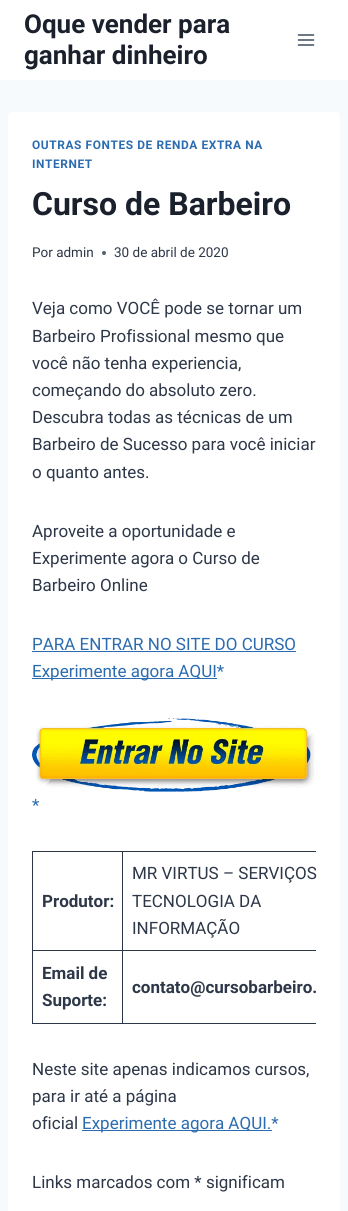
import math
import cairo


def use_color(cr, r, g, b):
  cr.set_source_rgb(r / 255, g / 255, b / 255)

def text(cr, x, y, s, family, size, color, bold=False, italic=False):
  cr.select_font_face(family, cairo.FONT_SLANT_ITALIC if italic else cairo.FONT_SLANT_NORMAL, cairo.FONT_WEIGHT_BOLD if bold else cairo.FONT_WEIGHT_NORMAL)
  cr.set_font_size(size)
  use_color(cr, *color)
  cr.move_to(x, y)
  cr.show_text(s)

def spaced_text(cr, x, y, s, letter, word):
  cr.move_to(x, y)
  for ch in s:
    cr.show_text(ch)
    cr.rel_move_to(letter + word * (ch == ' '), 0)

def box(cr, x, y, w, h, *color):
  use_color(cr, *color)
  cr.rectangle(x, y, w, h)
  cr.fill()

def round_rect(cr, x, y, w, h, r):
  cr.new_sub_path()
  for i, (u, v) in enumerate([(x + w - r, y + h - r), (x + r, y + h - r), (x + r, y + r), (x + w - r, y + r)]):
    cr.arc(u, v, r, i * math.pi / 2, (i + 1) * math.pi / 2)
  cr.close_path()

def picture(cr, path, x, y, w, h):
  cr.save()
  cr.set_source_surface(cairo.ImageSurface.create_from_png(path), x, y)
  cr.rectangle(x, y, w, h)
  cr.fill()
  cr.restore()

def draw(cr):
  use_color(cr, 247, 250, 252)
  cr.paint()
  box(cr, 0, 0, 348, 80, 255, 255, 255)
  picture(cr, "img_01.png", 297, 34, 18, 12)
  round_rect(cr, 8, 112, 332, 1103, 4)
  cr.fill()
  use_color(cr, 87, 95, 109)
  cr.arc(104, 253, 2, 0, 2 * math.pi)
  cr.fill()
  box(cr, 32, 651, 264, 1, 43, 108, 176)
  box(cr, 32, 678, 185, 1, 43, 108, 176)
  picture(cr, "img_02.png", 32, 718, 283, 74)
  box(cr, 122, 851, 194, 1, 45, 55, 72)
  box(cr, 122, 950, 194, 1, 45, 55, 72)
  box(cr, 122, 1023, 194, 1, 45, 55, 72)
  box(cr, 122, 950, 1, 74, 45, 55, 72)
  box(cr, 32, 950, 91, 1, 45, 55, 72)
  box(cr, 122, 851, 1, 100, 45, 55, 72)
  box(cr, 32, 851, 91, 1, 45, 55, 72)
  box(cr, 32, 1023, 91, 1, 45, 55, 72)
  box(cr, 32, 950, 1, 74, 45, 55, 72)
  box(cr, 32, 851, 1, 100, 45, 55, 72)
  box(cr, 82, 1130, 190, 1, 43, 108, 176)
  text(cr, 24, 33, "Oque vender para", "Roboto", 26, (26, 32, 44), bold=True)
  text(cr, 24, 64, "ganhar dinheiro", "Roboto", 26, (26, 32, 44), bold=True)
  cr.set_font_size(11.9)
  use_color(cr, 43, 108, 176)
  spaced_text(cr, 32, 149, "OUTRAS FONTES DE RENDA EXTRA NA", 0.6, 0)
  spaced_text(cr, 32, 168, "INTERNET", 0.6, 0)
  text(cr, 32, 215, "Curso de Barbeiro", "Roboto", 32, (26, 32, 44), bold=True)
  text(cr, 32, 257, "Por admin", "Roboto", 13.5, (45, 55, 72))
  text(cr, 114, 257, "30 de abril de 2020", "Roboto", 13.5, (45, 55, 72))
  text(cr, 32, 314, "Veja como VOCÊ pode se tornar um", "Roboto", 17, (45, 55, 72))
  text(cr, 32, 342, "Barbeiro Profissional mesmo que", "Roboto", 17, (45, 55, 72))
  text(cr, 32, 369, "você não tenha experiencia,", "Roboto", 17, (45, 55, 72))
  text(cr, 32, 396, "começando do absoluto zero.", "Roboto", 17, (45, 55, 72))
  text(cr, 32, 423, "Descubra todas as técnicas de um", "Roboto", 17, (45, 55, 72))
  text(cr, 32, 450, "Barbeiro de Sucesso para você iniciar", "Roboto", 17, (45, 55, 72))
  text(cr, 32, 478, "o quanto antes.", "Roboto", 17, (45, 55, 72))
  text(cr, 32, 537, "Aproveite a oportunidade e", "Roboto", 17, (45, 55, 72))
  text(cr, 32, 564, "Experimente agora o Curso de", "Roboto", 17, (45, 55, 72))
  text(cr, 32, 591, "Barbeiro Online", "Roboto", 17, (45, 55, 72))
  text(cr, 32, 650, "PARA ENTRAR NO SITE DO CURSO", "Roboto", 17, (43, 108, 176))
  text(cr, 32, 677, "Experimente agora AQUI*", "Roboto", 17, (43, 108, 176))
  text(cr, 32, 811, "*", "Roboto", 17, (43, 108, 176))
  text(cr, 42, 907, "Produtor:", "Roboto", 17, (45, 55, 72), bold=True)
  text(cr, 132, 879, "MR VIRTUS – SERVIÇOS", "Roboto", 17, (45, 55, 72))
  text(cr, 132, 907, "TECNOLOGIA DA", "Roboto", 17, (45, 55, 72))
  text(cr, 132, 934, "INFORMAÇÃO", "Roboto", 17, (45, 55, 72))
  text(cr, 42, 979, "Email de", "Roboto", 17, (45, 55, 72), bold=True)
  text(cr, 42, 1006, "Suporte:", "Roboto", 17, (45, 55, 72), bold=True)
  text(cr, 132, 993, "contato@cursobarbeiro.", "Roboto", 17, (45, 55, 72), bold=True)
  text(cr, 32, 1075, "Neste site apenas indicamos cursos,", "Roboto", 17, (45, 55, 72))
  text(cr, 32, 1102, "para ir até a página", "Roboto", 17, (45, 55, 72))
  text(cr, 32, 1129, "oficial", "Roboto", 17, (45, 55, 72))
  text(cr, 82, 1129, "Experimente agora AQUI.*", "Roboto", 17, (43, 108, 176))
  text(cr, 32, 1188, "Links marcados com * significam", "Roboto", 17, (45, 55, 72))


surface = cairo.ImageSurface(cairo.FORMAT_RGB24, 348, 1211)
cr = cairo.Context(surface)
options = cairo.FontOptions()
options.set_hint_metrics(cairo.HINT_METRICS_OFF)
options.set_hint_style(cairo.HINT_STYLE_NONE)
cr.set_font_options(options)
cr.set_miter_limit(4)
draw(cr)
surface.write_to_png("out.png")
